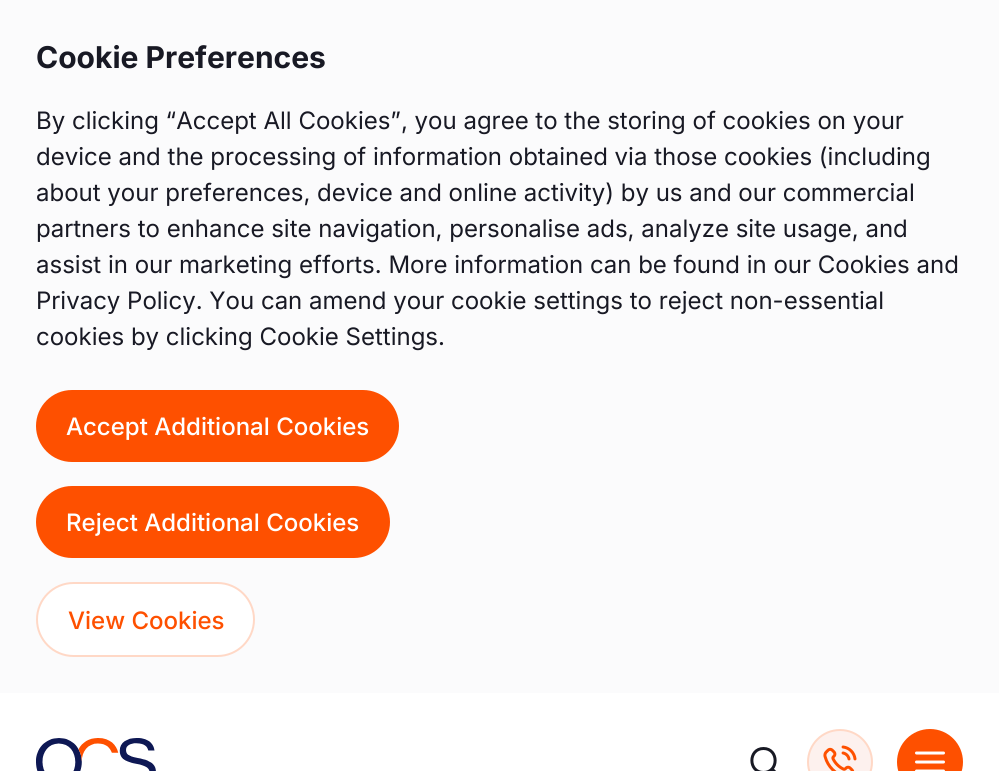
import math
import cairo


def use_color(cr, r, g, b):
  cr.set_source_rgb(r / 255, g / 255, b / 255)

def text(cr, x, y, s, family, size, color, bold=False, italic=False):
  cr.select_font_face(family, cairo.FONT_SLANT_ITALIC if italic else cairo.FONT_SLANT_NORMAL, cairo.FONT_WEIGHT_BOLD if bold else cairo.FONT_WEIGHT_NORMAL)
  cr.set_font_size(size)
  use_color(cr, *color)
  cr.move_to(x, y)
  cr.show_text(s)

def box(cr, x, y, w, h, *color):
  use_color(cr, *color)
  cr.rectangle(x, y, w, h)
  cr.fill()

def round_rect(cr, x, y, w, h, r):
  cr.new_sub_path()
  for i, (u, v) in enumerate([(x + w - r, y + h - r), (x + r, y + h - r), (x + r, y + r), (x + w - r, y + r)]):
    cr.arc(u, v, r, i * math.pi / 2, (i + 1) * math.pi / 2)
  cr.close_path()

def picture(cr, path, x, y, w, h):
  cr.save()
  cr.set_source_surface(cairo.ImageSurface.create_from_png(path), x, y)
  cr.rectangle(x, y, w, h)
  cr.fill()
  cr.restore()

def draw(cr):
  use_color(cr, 255, 255, 255)
  cr.paint()
  box(cr, 0, 0, 999, 693, 251, 251, 252)
  use_color(cr, 254, 80, 0)
  round_rect(cr, 36, 390, 363, 72, 36)
  cr.fill()
  round_rect(cr, 36, 486, 354, 72, 36)
  cr.fill()
  use_color(cr, 255, 255, 255)
  round_rect(cr, 37, 583, 217, 73, 36.5)
  cr.fill_preserve()
  use_color(cr, 255, 216, 198)
  cr.stroke()
  picture(cr, "img_01.png", 36, 738, 120, 33)
  cr.new_path()
  cr.move_to(763.5, 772.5)
  cr.curve_to(779, 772.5, 779, 748.5, 763.5, 748.5)
  cr.curve_to(748, 748.5, 748, 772.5, 763.5, 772.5)
  cr.close_path()
  cr.move_to(778.5, 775.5)
  cr.line_to(772, 769)
  use_color(cr, 24, 25, 36)
  cr.set_line_width(3)
  cr.set_line_cap(cairo.LINE_CAP_ROUND)
  cr.set_line_join(cairo.LINE_JOIN_ROUND)
  cr.stroke()
  use_color(cr, 253, 241, 238)
  cr.arc(840, 762, 32, 0, 2 * math.pi)
  cr.fill_preserve()
  use_color(cr, 255, 216, 198)
  cr.set_line_width(2)
  cr.set_line_cap(cairo.LINE_CAP_BUTT)
  cr.set_line_join(cairo.LINE_JOIN_MITER)
  cr.stroke()
  picture(cr, "img_02.png", 823, 745, 34, 26)
  use_color(cr, 254, 80, 0)
  cr.arc(930, 762, 33, 0, 2 * math.pi)
  cr.fill()
  cr.new_path()
  cr.move_to(916.5, 762)
  cr.line_to(943.5, 762)
  cr.move_to(916.5, 753)
  cr.line_to(943.5, 753)
  cr.move_to(916.5, 771)
  cr.line_to(943.5, 771)
  use_color(cr, 255, 255, 255)
  cr.set_line_width(3)
  cr.set_line_cap(cairo.LINE_CAP_ROUND)
  cr.set_line_join(cairo.LINE_JOIN_ROUND)
  cr.stroke()
  text(cr, 36, 68, "Cookie Preferences", "Inter", 30, (24, 25, 36), bold=True)
  text(cr, 36, 129, "By clicking “Accept All Cookies”, you agree to the storing of cookies on your", "Inter", 24, (24, 25, 36))
  text(cr, 36, 165, "device and the processing of information obtained via those cookies (including", "Inter", 24, (24, 25, 36))
  text(cr, 36, 201, "about your preferences, device and online activity) by us and our commercial", "Inter", 24, (24, 25, 36))
  text(cr, 36, 237, "partners to enhance site navigation, personalise ads, analyze site usage, and", "Inter", 24, (24, 25, 36))
  text(cr, 36, 273, "assist in our marketing efforts. More information can be found in our Cookies and", "Inter", 24, (24, 25, 36))
  text(cr, 36, 309, "Privacy Policy. You can amend your cookie settings to reject non-essential", "Inter", 24, (24, 25, 36))
  text(cr, 36, 345, "cookies by clicking Cookie Settings.", "Inter", 24, (24, 25, 36))
  text(cr, 66, 435, "Accept Additional Cookies", "Inter Medium", 24, (255, 255, 255))
  text(cr, 66, 531, "Reject Additional Cookies", "Inter Medium", 24, (255, 255, 255))
  text(cr, 68, 629, "View Cookies", "Inter Medium", 24, (254, 80, 0))


surface = cairo.ImageSurface(cairo.FORMAT_RGB24, 999, 771)
cr = cairo.Context(surface)
options = cairo.FontOptions()
options.set_hint_metrics(cairo.HINT_METRICS_OFF)
options.set_hint_style(cairo.HINT_STYLE_NONE)
cr.set_font_options(options)
cr.set_miter_limit(4)
draw(cr)
surface.write_to_png("out.png")
